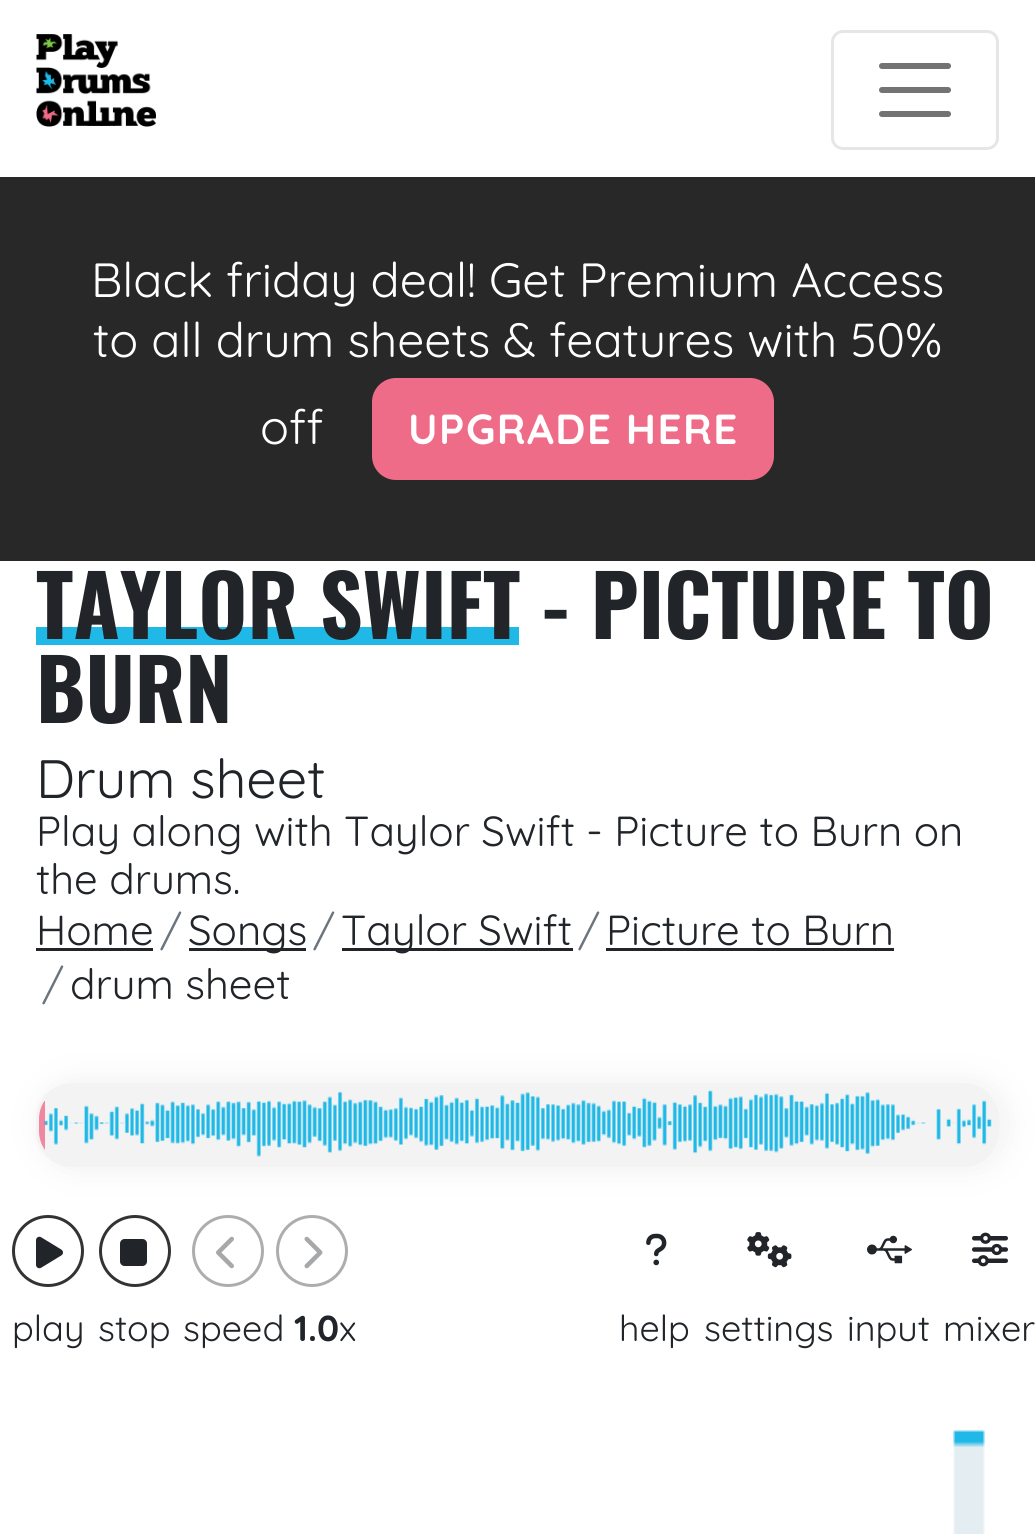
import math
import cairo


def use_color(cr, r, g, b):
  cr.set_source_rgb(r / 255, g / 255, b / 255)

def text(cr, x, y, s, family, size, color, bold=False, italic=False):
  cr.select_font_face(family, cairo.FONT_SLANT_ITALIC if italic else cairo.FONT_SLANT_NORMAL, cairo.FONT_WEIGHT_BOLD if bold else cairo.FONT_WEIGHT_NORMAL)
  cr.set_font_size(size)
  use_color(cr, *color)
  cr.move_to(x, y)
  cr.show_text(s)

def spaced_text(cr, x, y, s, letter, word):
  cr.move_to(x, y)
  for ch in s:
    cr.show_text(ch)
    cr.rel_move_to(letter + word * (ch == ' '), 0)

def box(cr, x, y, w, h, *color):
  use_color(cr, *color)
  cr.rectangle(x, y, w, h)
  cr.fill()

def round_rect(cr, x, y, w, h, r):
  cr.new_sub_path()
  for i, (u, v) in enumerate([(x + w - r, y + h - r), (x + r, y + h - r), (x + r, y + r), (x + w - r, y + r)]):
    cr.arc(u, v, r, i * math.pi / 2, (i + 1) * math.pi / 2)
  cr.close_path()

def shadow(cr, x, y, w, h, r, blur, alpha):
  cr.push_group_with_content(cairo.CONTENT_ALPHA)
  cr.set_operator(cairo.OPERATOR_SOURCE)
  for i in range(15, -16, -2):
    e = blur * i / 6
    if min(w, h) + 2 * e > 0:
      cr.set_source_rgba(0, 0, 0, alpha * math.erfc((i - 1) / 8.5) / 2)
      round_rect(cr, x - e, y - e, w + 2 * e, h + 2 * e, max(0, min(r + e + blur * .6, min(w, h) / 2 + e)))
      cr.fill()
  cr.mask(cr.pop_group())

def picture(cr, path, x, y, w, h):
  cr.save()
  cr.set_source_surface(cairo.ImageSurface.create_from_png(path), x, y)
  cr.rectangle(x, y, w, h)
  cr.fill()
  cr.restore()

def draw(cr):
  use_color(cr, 255, 255, 255)
  cr.paint()
  picture(cr, "img_01.png", 36, 34, 120, 93)
  round_rect(cr, 832.5, 31.5, 165, 117, 10.5)
  use_color(cr, 230, 230, 230)
  cr.set_line_width(3)
  cr.stroke()
  cr.new_path()
  cr.move_to(882, 66)
  cr.line_to(948, 66)
  cr.move_to(882, 90)
  cr.line_to(948, 90)
  cr.move_to(882, 114)
  cr.line_to(948, 114)
  use_color(cr, 115, 115, 115)
  cr.set_line_width(6)
  cr.set_line_cap(cairo.LINE_CAP_ROUND)
  cr.stroke()
  box(cr, 0, 177, 1035, 384, 40, 40, 40)
  use_color(cr, 239, 108, 136)
  round_rect(cr, 372, 378, 402, 102, 24)
  cr.fill()
  box(cr, 36, 627, 483, 18, 32, 184, 230)
  box(cr, 36, 948, 117, 3, 33, 37, 41)
  box(cr, 189, 948, 117, 3, 33, 37, 41)
  box(cr, 342, 948, 231, 3, 33, 37, 41)
  box(cr, 606, 948, 288, 3, 33, 37, 41)
  cr.arc(48, 1251, 34.5, 0, 2 * math.pi)
  use_color(cr, 51, 51, 51)
  cr.set_line_width(3)
  cr.set_line_cap(cairo.LINE_CAP_BUTT)
  cr.stroke()
  cr.arc(135, 1251, 34.5, 0, 2 * math.pi)
  cr.stroke()
  use_color(cr, 242, 242, 242)
  shadow(cr, 39, 1080, 969, 90, 39, 15, 1)
  use_color(cr, 243, 243, 243)
  round_rect(cr, 36, 1083, 963, 84, 36)
  cr.fill()
  picture(cr, "img_02.png", 43, 1089, 949, 68)
  cr.save()
  round_rect(cr, 39, 1086, 957, 78, 33)
  cr.clip()
  cr.set_source_rgba(0.937, 0.424, 0.533, 0.8)
  cr.rectangle(39, 1101, 6, 49)
  cr.fill()
  cr.restore()
  picture(cr, "img_03.png", 36, 1236, 27, 33)
  picture(cr, "img_04.png", 120, 1239, 27, 27)
  cr.arc(228, 1251, 34.5, 0, 2 * math.pi)
  cr.set_source_rgba(0.2, 0.2, 0.2, 0.4)
  cr.stroke()
  picture(cr, "img_05.png", 216, 1236, 18, 33)
  cr.arc(312, 1251, 34.5, 0, 2 * math.pi)
  use_color(cr, 173, 173, 173)
  cr.stroke()
  picture(cr, "img_06.png", 304, 1236, 19, 33)
  picture(cr, "img_07.png", 646, 1233, 21, 33)
  picture(cr, "img_08.png", 747, 1232, 45, 36)
  picture(cr, "img_09.png", 867, 1235, 46, 29)
  picture(cr, "img_10.png", 972, 1232, 36, 35)
  picture(cr, "img_11.png", 953, 1430, 32, 104)
  text(cr, 91, 297, "Black friday deal! Get Premium Access", "Quicksand", 48, (255, 255, 255))
  text(cr, 93, 357, "to all drum sheets & features with 50%", "Quicksand", 48, (255, 255, 255))
  text(cr, 260, 444, "off", "Quicksand", 48, (255, 255, 255))
  cr.select_font_face("Quicksand", cairo.FONT_SLANT_NORMAL, cairo.FONT_WEIGHT_BOLD)
  cr.set_font_size(42)
  spaced_text(cr, 408, 444, "UPGRADE HERE", 1.5, 0)
  text(cr, 36, 639, "TAYLOR SWIFT", "Oswald", 84, (33, 37, 41), bold=True)
  text(cr, 542, 639, "- PICTURE TO", "Oswald", 84, (33, 37, 41), bold=True)
  text(cr, 36, 723, "BURN", "Oswald", 84, (33, 37, 41), bold=True)
  text(cr, 36, 798, "Drum sheet", "Quicksand", 54, (33, 37, 41))
  text(cr, 36, 846, "Play along with Taylor Swift - Picture to Burn on", "Quicksand", 42, (33, 37, 41))
  text(cr, 36, 894, "the drums.", "Quicksand", 42, (33, 37, 41))
  text(cr, 36, 945, "Home", "Quicksand", 42, (33, 37, 41))
  text(cr, 160, 945, "/", "Quicksand", 42, (108, 117, 125))
  text(cr, 188, 945, "Songs", "Quicksand", 42, (33, 37, 41))
  text(cr, 313, 945, "/", "Quicksand", 42, (108, 117, 125))
  text(cr, 341, 945, "Taylor Swift", "Quicksand", 42, (33, 37, 41))
  text(cr, 578, 945, "/", "Quicksand", 42, (108, 117, 125))
  text(cr, 606, 945, "Picture to Burn", "Quicksand", 42, (33, 37, 41))
  text(cr, 42, 999, "/", "Quicksand", 42, (108, 117, 125))
  text(cr, 70, 999, "drum sheet", "Quicksand", 42, (33, 37, 41))
  text(cr, 12, 1341, "play", "Quicksand", 36, (33, 37, 41))
  text(cr, 98, 1341, "stop", "Quicksand", 36, (33, 37, 41))
  text(cr, 183, 1341, "speed", "Quicksand", 36, (33, 37, 41))
  text(cr, 294, 1341, "1.0", "Quicksand", 36, (33, 37, 41), bold=True)
  text(cr, 339, 1341, "x", "Quicksand", 36, (33, 37, 41))
  text(cr, 619, 1341, "help", "Quicksand", 36, (33, 37, 41))
  text(cr, 704, 1341, "settings", "Quicksand", 36, (33, 37, 41))
  text(cr, 847, 1341, "input", "Quicksand", 36, (33, 37, 41))
  text(cr, 943, 1341, "mixer", "Quicksand", 36, (33, 37, 41))


surface = cairo.ImageSurface(cairo.FORMAT_RGB24, 1035, 1534)
cr = cairo.Context(surface)
options = cairo.FontOptions()
options.set_hint_metrics(cairo.HINT_METRICS_OFF)
options.set_hint_style(cairo.HINT_STYLE_NONE)
cr.set_font_options(options)
cr.set_miter_limit(4)
draw(cr)
surface.write_to_png("out.png")
